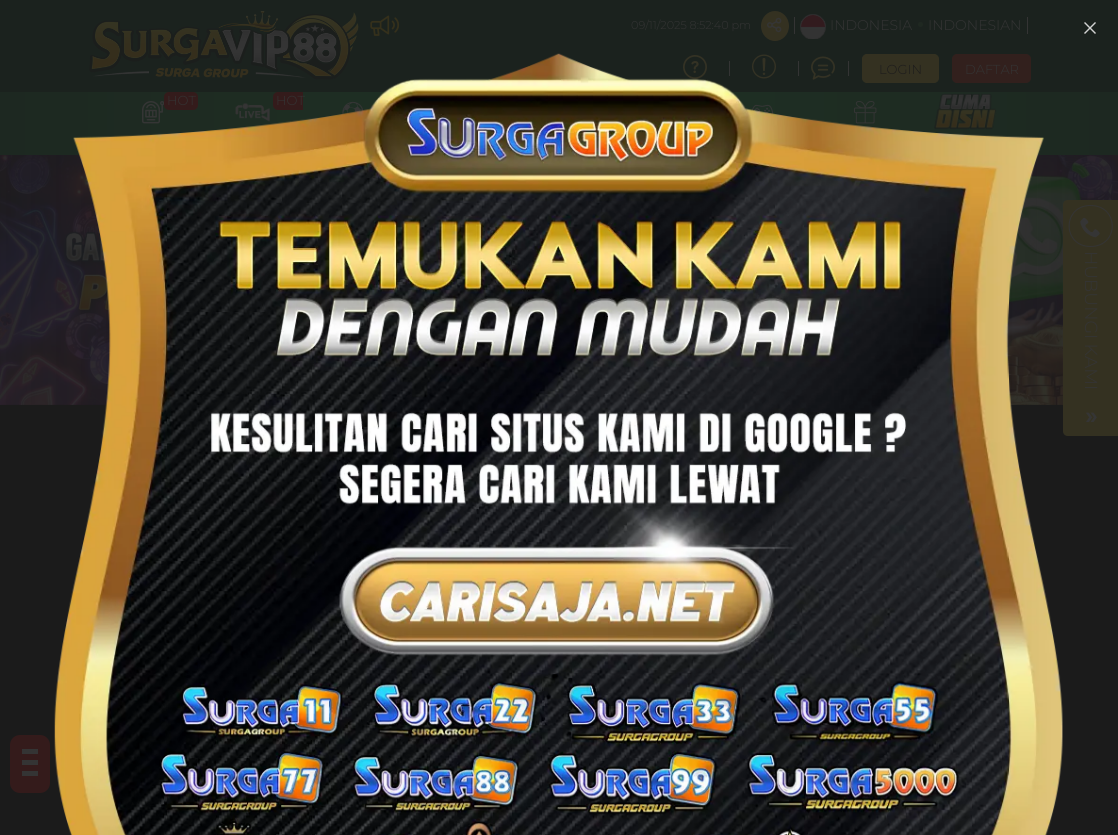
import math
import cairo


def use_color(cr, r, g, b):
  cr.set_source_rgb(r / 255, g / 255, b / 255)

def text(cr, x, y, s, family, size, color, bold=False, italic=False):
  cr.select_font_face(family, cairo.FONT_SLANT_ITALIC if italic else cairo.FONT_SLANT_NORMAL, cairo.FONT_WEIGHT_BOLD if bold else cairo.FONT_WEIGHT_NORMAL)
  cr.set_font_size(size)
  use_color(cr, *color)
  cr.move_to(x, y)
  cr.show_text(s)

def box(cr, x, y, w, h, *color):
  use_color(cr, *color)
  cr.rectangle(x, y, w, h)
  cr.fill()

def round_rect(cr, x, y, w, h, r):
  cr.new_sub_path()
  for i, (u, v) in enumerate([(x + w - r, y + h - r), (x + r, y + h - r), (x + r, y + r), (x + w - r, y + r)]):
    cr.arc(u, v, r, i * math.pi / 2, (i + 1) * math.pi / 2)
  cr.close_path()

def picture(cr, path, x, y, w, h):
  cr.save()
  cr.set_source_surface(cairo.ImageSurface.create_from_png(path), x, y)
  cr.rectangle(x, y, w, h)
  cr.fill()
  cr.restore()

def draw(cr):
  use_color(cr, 27, 27, 27)
  cr.paint()
  box(cr, 0, 0, 1118, 92, 27, 34, 30)
  picture(cr, "img_01.png", 89, 11, 270, 69)
  picture(cr, "img_02.png", 370, 15, 30, 21)
  use_color(cr, 52, 49, 33)
  cr.new_path()
  cr.move_to(775, 11)
  cr.curve_to(782.5, 11, 789, 17.5, 789, 26)
  cr.curve_to(789, 34.5, 782.5, 41, 775, 41)
  cr.curve_to(767.5, 41, 761, 34.5, 761, 26)
  cr.curve_to(761, 17.5, 767.5, 11, 775, 11)
  cr.close_path()
  cr.fill()
  picture(cr, "img_03.png", 767, 17, 15, 16)
  box(cr, 794, 17, 1, 17, 52, 52, 52)
  picture(cr, "img_04.png", 800, 14, 26, 25)
  use_color(cr, 31, 40, 33)
  cr.arc(920.5, 24.5, 2.5, 0, 2 * math.pi)
  cr.fill()
  box(cr, 1027, 17, 1, 17, 52, 52, 52)
  picture(cr, "img_05.png", 683, 55, 24, 24)
  box(cr, 729, 61, 1, 15, 52, 52, 52)
  picture(cr, "img_06.png", 752, 54, 24, 25)
  box(cr, 798, 61, 1, 15, 52, 52, 52)
  picture(cr, "img_07.png", 811, 56, 24, 24)
  box(cr, 848, 61, 1, 15, 52, 52, 52)
  use_color(cr, 52, 49, 33)
  round_rect(cr, 862.5, 54.5, 76, 28, 4.5)
  cr.fill_preserve()
  cr.set_line_width(1)
  cr.stroke()
  use_color(cr, 50, 32, 29)
  round_rect(cr, 952.5, 54.5, 78, 28, 4.5)
  cr.fill_preserve()
  cr.stroke()
  gradient = cairo.LinearGradient(1118, 123, -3.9, 124)
  gradient.add_color_stop_rgba(0, 0.114, 0.157, 0.129, 1)
  gradient.add_color_stop_rgba(0.5, 0.122, 0.192, 0.141, 1)
  gradient.add_color_stop_rgba(1, 0.114, 0.157, 0.129, 1)
  cr.set_source(gradient)
  cr.rectangle(0, 92, 1118, 63)
  cr.fill()
  picture(cr, "img_08.png", 142, 101, 22, 23)
  use_color(cr, 52, 27, 27)
  round_rect(cr, 164, 92, 34, 18, 5)
  cr.fill()
  cr.save()
  cr.rectangle(203, 92, 100, 63)
  cr.clip()
  round_rect(cr, 273, 92, 34, 18, 5)
  cr.fill()
  cr.restore()
  picture(cr, "img_09.png", 235, 103, 35, 19)
  picture(cr, "img_10.png", 342, 101, 22, 15)
  picture(cr, "img_11.png", 751, 104, 23, 11)
  picture(cr, "img_12.png", 854, 101, 23, 23)
  picture(cr, "img_13.png", 934, 93, 63, 37)
  picture(cr, "img_14.png", 1084, 22, 12, 12)
  picture(cr, "img_16.png", 0, 155, 1118, 250)
  gradient = cairo.LinearGradient(0, 280, 168, 280)
  gradient.add_color_stop_rgba(0, 0.106, 0.106, 0.106, 0.25)
  gradient.add_color_stop_rgba(1, 0.106, 0.106, 0.106, 0)
  cr.set_source(gradient)
  cr.rectangle(0, 155, 109, 250)
  cr.fill()
  gradient = cairo.LinearGradient(950, 280, 1118, 280)
  gradient.add_color_stop_rgba(0, 0.106, 0.106, 0.106, 0)
  gradient.add_color_stop_rgba(1, 0.106, 0.106, 0.106, 0.25)
  cr.set_source(gradient)
  cr.rectangle(1009, 155, 109, 250)
  cr.fill()
  picture(cr, "img_17.png", 89, 480, 8, 41)
  use_color(cr, 52, 49, 33)
  cr.new_path()
  cr.move_to(1068, 200)
  cr.line_to(1118, 200)
  cr.line_to(1118, 436)
  cr.line_to(1068, 436)
  cr.curve_to(1065, 436, 1063, 434, 1063, 431)
  cr.line_to(1063, 205)
  cr.curve_to(1063, 202, 1065, 200, 1068, 200)
  cr.close_path()
  cr.fill()
  cr.new_path()
  cr.move_to(1090.5, 205.5)
  cr.curve_to(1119.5, 205.5, 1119.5, 246.5, 1090.5, 246.5)
  cr.curve_to(1062, 246.5, 1062, 205.5, 1090.5, 205.5)
  cr.close_path()
  use_color(cr, 52, 52, 52)
  cr.stroke()
  picture(cr, "img_18.png", 1080, 217, 20, 21)
  picture(cr, "img_19.png", 1086, 412, 11, 10)
  use_color(cr, 52, 27, 27)
  round_rect(cr, 10, 735, 40, 58, 10)
  cr.fill()
  box(cr, 22, 749, 16, 5, 52, 52, 52)
  box(cr, 22, 760, 16, 5, 52, 52, 52)
  box(cr, 22, 771, 16, 5, 52, 52, 52)
  text(cr, 631, 29, "09/11/2025 8:52:40 pm", "Montserrat Light", 11.25, (52, 52, 52))
  text(cr, 830, 30, "INDONESIA", "Montserrat Light", 14, (52, 52, 52))
  text(cr, 928, 30, "INDONESIAN", "Montserrat Light", 14, (52, 52, 52))
  text(cr, 879, 74, "LOGIN", "Montserrat Light", 13, (28, 27, 27))
  text(cr, 965, 74, "DAFTAR", "Montserrat Light", 13, (52, 52, 52))
  text(cr, 167, 105, "HOT", "Montserrat Light", 13, (52, 52, 52))
  text(cr, 276, 105, "HOT", "Montserrat Light", 13, (52, 52, 52))
  picture(cr, "img_15.png", 54, 53, 1009, 782)
  cr.save()
  cr.translate(1085, 251)
  cr.rotate(90 * math.pi / 180)
  text(cr, 0, 0, "HUBUNGI KAMI", "Montserrat Light", 17.5, (52, 52, 52))
  cr.restore()


surface = cairo.ImageSurface(cairo.FORMAT_RGB24, 1118, 835)
cr = cairo.Context(surface)
options = cairo.FontOptions()
options.set_hint_metrics(cairo.HINT_METRICS_OFF)
options.set_hint_style(cairo.HINT_STYLE_NONE)
cr.set_font_options(options)
cr.set_miter_limit(4)
draw(cr)
surface.write_to_png("out.png")
